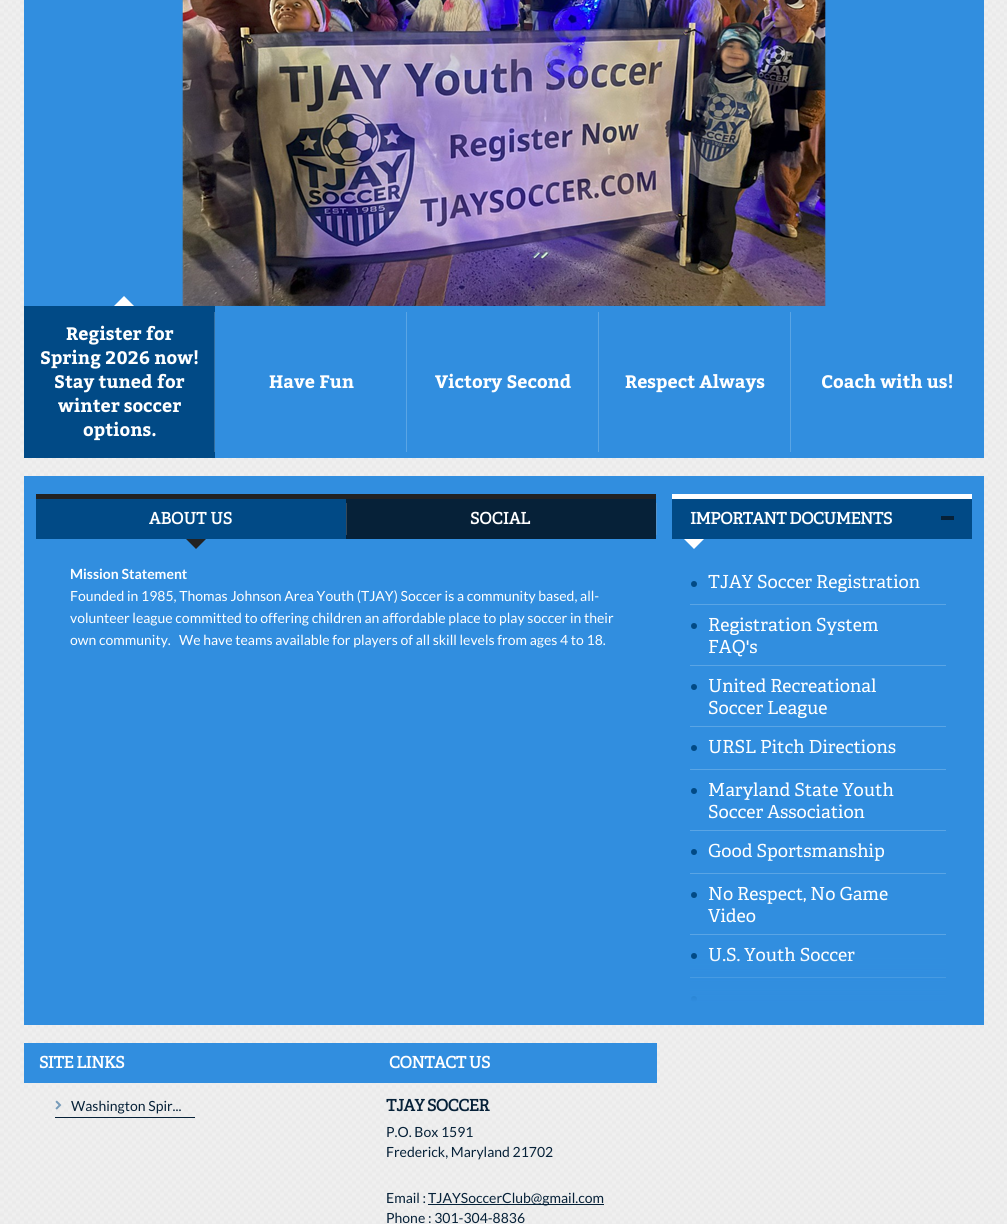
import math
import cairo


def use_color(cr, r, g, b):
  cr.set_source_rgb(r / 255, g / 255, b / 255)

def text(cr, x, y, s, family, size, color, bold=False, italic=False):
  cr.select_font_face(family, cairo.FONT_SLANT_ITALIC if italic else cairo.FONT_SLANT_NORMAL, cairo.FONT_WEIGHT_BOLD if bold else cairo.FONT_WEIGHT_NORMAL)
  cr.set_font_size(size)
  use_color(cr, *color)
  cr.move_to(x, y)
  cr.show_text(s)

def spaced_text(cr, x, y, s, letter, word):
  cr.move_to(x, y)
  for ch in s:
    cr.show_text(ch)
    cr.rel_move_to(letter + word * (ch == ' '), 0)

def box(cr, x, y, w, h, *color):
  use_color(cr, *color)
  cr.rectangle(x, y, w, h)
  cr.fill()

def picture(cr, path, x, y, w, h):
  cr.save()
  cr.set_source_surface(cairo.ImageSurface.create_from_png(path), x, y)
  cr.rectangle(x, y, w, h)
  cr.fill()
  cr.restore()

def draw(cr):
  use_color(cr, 255, 255, 255)
  cr.paint()
  picture(cr, "img_01.png", 0, 0, 1007, 1224)
  box(cr, 24, 0, 960, 458, 49, 142, 223)
  picture(cr, "img_02.png", 182, 0, 644, 306)
  box(cr, 24, 306, 191, 152, 1, 74, 134)
  use_color(cr, 255, 255, 255)
  cr.new_path()
  cr.move_to(134, 306)
  cr.line_to(114, 306)
  cr.line_to(124, 296)
  cr.close_path()
  cr.fill()
  box(cr, 214, 312, 1, 140, 52, 110, 158)
  box(cr, 406, 312, 1, 140, 90, 165, 229)
  box(cr, 598, 312, 1, 140, 90, 165, 229)
  box(cr, 790, 312, 1, 140, 90, 165, 229)
  box(cr, 24, 476, 960, 549, 49, 142, 223)
  box(cr, 346, 499, 310, 40, 6, 33, 56)
  box(cr, 36, 494, 620, 5, 34, 34, 34)
  box(cr, 36, 499, 310, 40, 1, 74, 134)
  box(cr, 346, 503, 1, 32, 53, 72, 88)
  use_color(cr, 34, 34, 34)
  cr.new_path()
  cr.move_to(186, 539)
  cr.line_to(206, 539)
  cr.line_to(196, 549)
  cr.close_path()
  cr.fill()
  box(cr, 656, 503, 1, 32, 83, 148, 205)
  box(cr, 672, 499, 300, 40, 1, 74, 134)
  box(cr, 672, 494, 300, 5, 255, 255, 255)
  box(cr, 941, 516, 13, 4, 6, 33, 56)
  use_color(cr, 255, 255, 255)
  cr.new_path()
  cr.move_to(684, 539)
  cr.line_to(704, 539)
  cr.line_to(694, 549)
  cr.close_path()
  cr.fill()
  box(cr, 690, 604, 256, 1, 90, 165, 229)
  use_color(cr, 1, 74, 134)
  cr.arc(694, 584, 3, 0, 2 * math.pi)
  cr.fill()
  box(cr, 690, 665, 256, 1, 90, 165, 229)
  use_color(cr, 1, 74, 134)
  cr.arc(694, 626, 3, 0, 2 * math.pi)
  cr.fill()
  box(cr, 690, 726, 256, 1, 90, 165, 229)
  use_color(cr, 1, 74, 134)
  cr.arc(694, 687, 3, 0, 2 * math.pi)
  cr.fill()
  box(cr, 690, 769, 256, 1, 90, 165, 229)
  use_color(cr, 1, 74, 134)
  cr.arc(694, 748, 3, 0, 2 * math.pi)
  cr.fill()
  box(cr, 690, 830, 256, 1, 90, 165, 229)
  use_color(cr, 1, 74, 134)
  cr.arc(694, 791, 3, 0, 2 * math.pi)
  cr.fill()
  box(cr, 690, 873, 256, 1, 90, 165, 229)
  use_color(cr, 1, 74, 134)
  cr.arc(694, 852, 3, 0, 2 * math.pi)
  cr.fill()
  box(cr, 690, 934, 256, 1, 90, 165, 229)
  use_color(cr, 1, 74, 134)
  cr.arc(694, 895, 3, 0, 2 * math.pi)
  cr.fill()
  box(cr, 690, 977, 256, 1, 90, 165, 229)
  use_color(cr, 1, 74, 134)
  cr.arc(694, 956, 3, 0, 2 * math.pi)
  cr.fill()
  cr.arc(694, 999, 3, 0, 2 * math.pi)
  cr.fill()
  box(cr, 24, 1043, 633, 40, 49, 142, 223)
  box(cr, 55, 1117, 140, 1, 6, 33, 56)
  picture(cr, "img_03.png", 55, 1100, 7, 10)
  box(cr, 428, 1204, 176, 1, 6, 33, 56)
  text(cr, 66, 340, "Register for", "Bitter", 18, (255, 255, 255), bold=True)
  text(cr, 40, 364, "Spring 2026 now!", "Bitter", 18, (255, 255, 255), bold=True)
  text(cr, 54, 388, "Stay tuned for", "Bitter", 18, (255, 255, 255), bold=True)
  text(cr, 58, 412, "winter soccer", "Bitter", 18, (255, 255, 255), bold=True)
  text(cr, 83, 436, "options.", "Bitter", 18, (255, 255, 255), bold=True)
  text(cr, 269, 388, "Have Fun", "Bitter", 18, (255, 255, 255), bold=True)
  text(cr, 435, 388, "Victory Second", "Bitter", 18, (255, 255, 255), bold=True)
  text(cr, 625, 388, "Respect Always", "Bitter", 18, (255, 255, 255), bold=True)
  text(cr, 821, 388, "Coach with us!", "Bitter", 18, (255, 255, 255), bold=True)
  text(cr, 149, 524, "ABOUT US", "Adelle", 16, (255, 255, 255), bold=True)
  text(cr, 470, 524, "SOCIAL", "Adelle", 16, (255, 255, 255), bold=True)
  text(cr, 70, 579, "Mission Statement", "Lato", 14, (255, 255, 255), bold=True)
  text(cr, 70, 601, "Founded in 1985, Thomas Johnson Area Youth (TJAY) Soccer is a community based, all-", "Lato", 14, (255, 255, 255))
  text(cr, 70, 623, "volunteer league committed to offering children an affordable place to play soccer in their", "Lato", 14, (255, 255, 255))
  text(cr, 70, 645, "own community.   We have teams available for players of all skill levels from ages 4 to 18.", "Lato", 14, (255, 255, 255))
  cr.select_font_face("Adelle", cairo.FONT_SLANT_NORMAL, cairo.FONT_WEIGHT_BOLD)
  cr.set_font_size(16)
  spaced_text(cr, 690, 524, "IMPORTANT DOCUMENTS", -0.5, 0)
  text(cr, 708, 588, "TJAY Soccer Registration", "Adelle", 18, (255, 255, 255))
  text(cr, 708, 631, "Registration System", "Adelle", 18, (255, 255, 255))
  text(cr, 708, 653, "FAQ's", "Adelle", 18, (255, 255, 255))
  text(cr, 708, 692, "United Recreational", "Adelle", 18, (255, 255, 255))
  text(cr, 708, 714, "Soccer League", "Adelle", 18, (255, 255, 255))
  text(cr, 708, 753, "URSL Pitch Directions", "Adelle", 18, (255, 255, 255))
  text(cr, 708, 796, "Maryland State Youth", "Adelle", 18, (255, 255, 255))
  text(cr, 708, 818, "Soccer Association", "Adelle", 18, (255, 255, 255))
  text(cr, 708, 857, "Good Sportsmanship", "Adelle", 18, (255, 255, 255))
  text(cr, 708, 900, "No Respect, No Game", "Adelle", 18, (255, 255, 255))
  text(cr, 708, 922, "Video", "Adelle", 18, (255, 255, 255))
  text(cr, 708, 961, "U.S. Youth Soccer", "Adelle", 18, (255, 255, 255))
  gradient = cairo.LinearGradient(820, 957, 820, 1007)
  gradient.add_color_stop_rgba(0, 0.192, 0.557, 0.875, 0)
  gradient.add_color_stop_rgba(0.9, 0.192, 0.557, 0.875, 1)
  gradient.add_color_stop_rgba(1, 0.192, 0.557, 0.875, 1)
  cr.set_source(gradient)
  cr.rectangle(690, 958, 256, 44)
  cr.fill()
  cr.select_font_face("Adelle", cairo.FONT_SLANT_NORMAL, cairo.FONT_WEIGHT_BOLD)
  cr.set_font_size(16)
  use_color(cr, 255, 255, 255)
  spaced_text(cr, 39, 1068, "SITE LINKS", -0.5, 0)
  text(cr, 71, 1111, "Washington Spir...", "Lato", 14, (6, 33, 56))
  cr.select_font_face("Adelle", cairo.FONT_SLANT_NORMAL, cairo.FONT_WEIGHT_BOLD)
  cr.set_font_size(16)
  use_color(cr, 255, 255, 255)
  spaced_text(cr, 389, 1068, "CONTACT US", -0.5, 0)
  use_color(cr, 6, 33, 56)
  spaced_text(cr, 386, 1111, "TJAY SOCCER", -0.5, 0)
  text(cr, 386, 1137, "P.O. Box 1591", "Lato", 14, (6, 33, 56))
  text(cr, 386, 1157, "Frederick, Maryland 21702", "Lato", 14, (6, 33, 56))
  text(cr, 386, 1203, "Email :", "Lato", 14, (6, 33, 56))
  text(cr, 428, 1203, "TJAYSoccerClub@gmail.com", "Lato", 14, (6, 33, 56))
  text(cr, 386, 1223, "Phone : 301-304-8836", "Lato", 14, (6, 33, 56))


surface = cairo.ImageSurface(cairo.FORMAT_RGB24, 1007, 1224)
cr = cairo.Context(surface)
options = cairo.FontOptions()
options.set_hint_metrics(cairo.HINT_METRICS_OFF)
options.set_hint_style(cairo.HINT_STYLE_NONE)
cr.set_font_options(options)
cr.set_miter_limit(4)
draw(cr)
surface.write_to_png("out.png")
